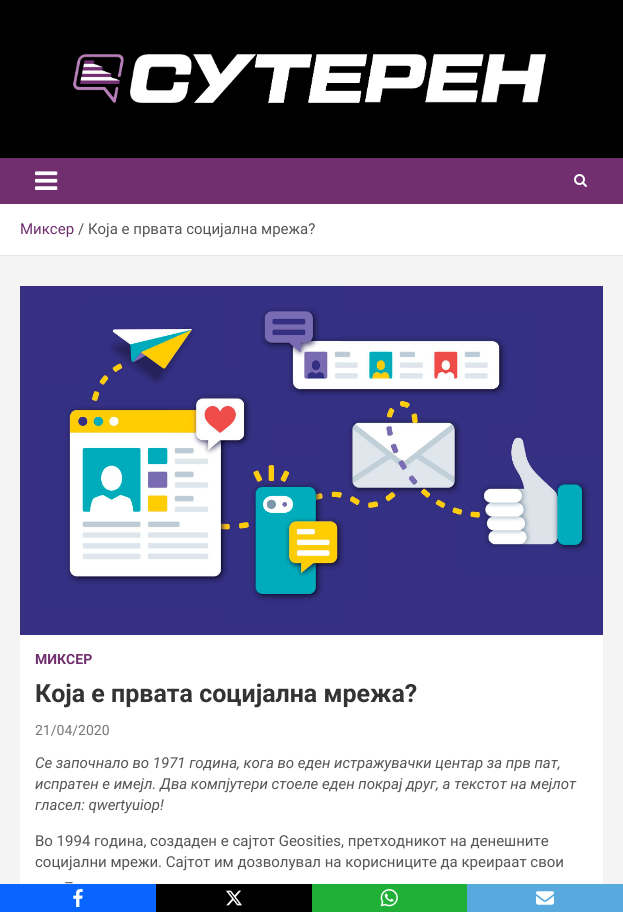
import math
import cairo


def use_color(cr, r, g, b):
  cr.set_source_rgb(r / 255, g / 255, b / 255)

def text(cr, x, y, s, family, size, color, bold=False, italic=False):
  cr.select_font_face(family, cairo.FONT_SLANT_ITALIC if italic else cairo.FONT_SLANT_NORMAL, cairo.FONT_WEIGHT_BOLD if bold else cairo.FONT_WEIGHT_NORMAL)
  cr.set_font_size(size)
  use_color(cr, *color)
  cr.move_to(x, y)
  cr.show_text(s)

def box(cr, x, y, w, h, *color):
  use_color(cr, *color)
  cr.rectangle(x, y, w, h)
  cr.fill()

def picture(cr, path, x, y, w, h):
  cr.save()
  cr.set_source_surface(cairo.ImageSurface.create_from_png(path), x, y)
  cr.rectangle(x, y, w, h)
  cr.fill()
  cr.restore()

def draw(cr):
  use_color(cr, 244, 244, 244)
  cr.paint()
  box(cr, 0, 0, 623, 158, 0, 0, 0)
  picture(cr, "img_01.png", 73, 54, 473, 49)
  box(cr, 0, 158, 623, 46, 113, 47, 112)
  picture(cr, "img_02.png", 35, 171, 23, 19)
  picture(cr, "img_03.png", 574, 174, 13, 13)
  box(cr, 0, 204, 623, 51, 255, 255, 255)
  box(cr, 0, 255, 623, 1, 230, 230, 230)
  box(cr, 20, 635, 583, 249, 255, 255, 255)
  picture(cr, "img_04.png", 20, 286, 583, 349)
  box(cr, 0, 884, 156, 28, 8, 102, 255)
  picture(cr, "img_05.png", 73, 889, 10, 18)
  box(cr, 156, 884, 156, 28, 0, 0, 0)
  picture(cr, "img_06.png", 226, 890, 16, 16)
  box(cr, 312, 884, 155, 28, 32, 176, 56)
  picture(cr, "img_07.png", 380, 889, 18, 18)
  box(cr, 467, 884, 156, 28, 88, 169, 222)
  picture(cr, "img_08.png", 536, 891, 18, 14)
  text(cr, 20, 234, "Миксер", "Roboto", 15, (113, 47, 112))
  text(cr, 78, 234, "/ Која е првата социјална мрежа?", "Roboto", 15, (85, 85, 85))
  text(cr, 35, 664, "МИКСЕР", "Roboto", 14, (113, 47, 112), bold=True)
  text(cr, 35, 702, "Која е првата социјална мрежа?", "Roboto", 25, (51, 51, 51), bold=True)
  text(cr, 35, 735, "21/04/2020", "Roboto", 14, (119, 119, 119))
  text(cr, 35, 768, "Се започнало во 1971 година, кога во еден истражувачки центар за прв пат,", "Roboto", 15, (85, 85, 85), italic=True)
  text(cr, 35, 789, "испратен е имејл. Два компјутери стоеле еден покрај друг, а текстот на мејлот", "Roboto", 15, (85, 85, 85), italic=True)
  text(cr, 35, 810, "гласел: qwertyuiop!", "Roboto", 15, (85, 85, 85), italic=True)
  text(cr, 35, 846, "Во 1994 година, создаден е сајтот Geosities, претходникот на денешните", "Roboto", 15, (85, 85, 85))
  text(cr, 35, 867, "социјални мрежи. Сајтот им дозволувал на корисниците да креираат свои", "Roboto", 15, (85, 85, 85))
  text(cr, 64, 888, "–", "Roboto", 15, (85, 85, 85))


surface = cairo.ImageSurface(cairo.FORMAT_RGB24, 623, 912)
cr = cairo.Context(surface)
options = cairo.FontOptions()
options.set_hint_metrics(cairo.HINT_METRICS_OFF)
options.set_hint_style(cairo.HINT_STYLE_NONE)
cr.set_font_options(options)
cr.set_miter_limit(4)
draw(cr)
surface.write_to_png("out.png")
